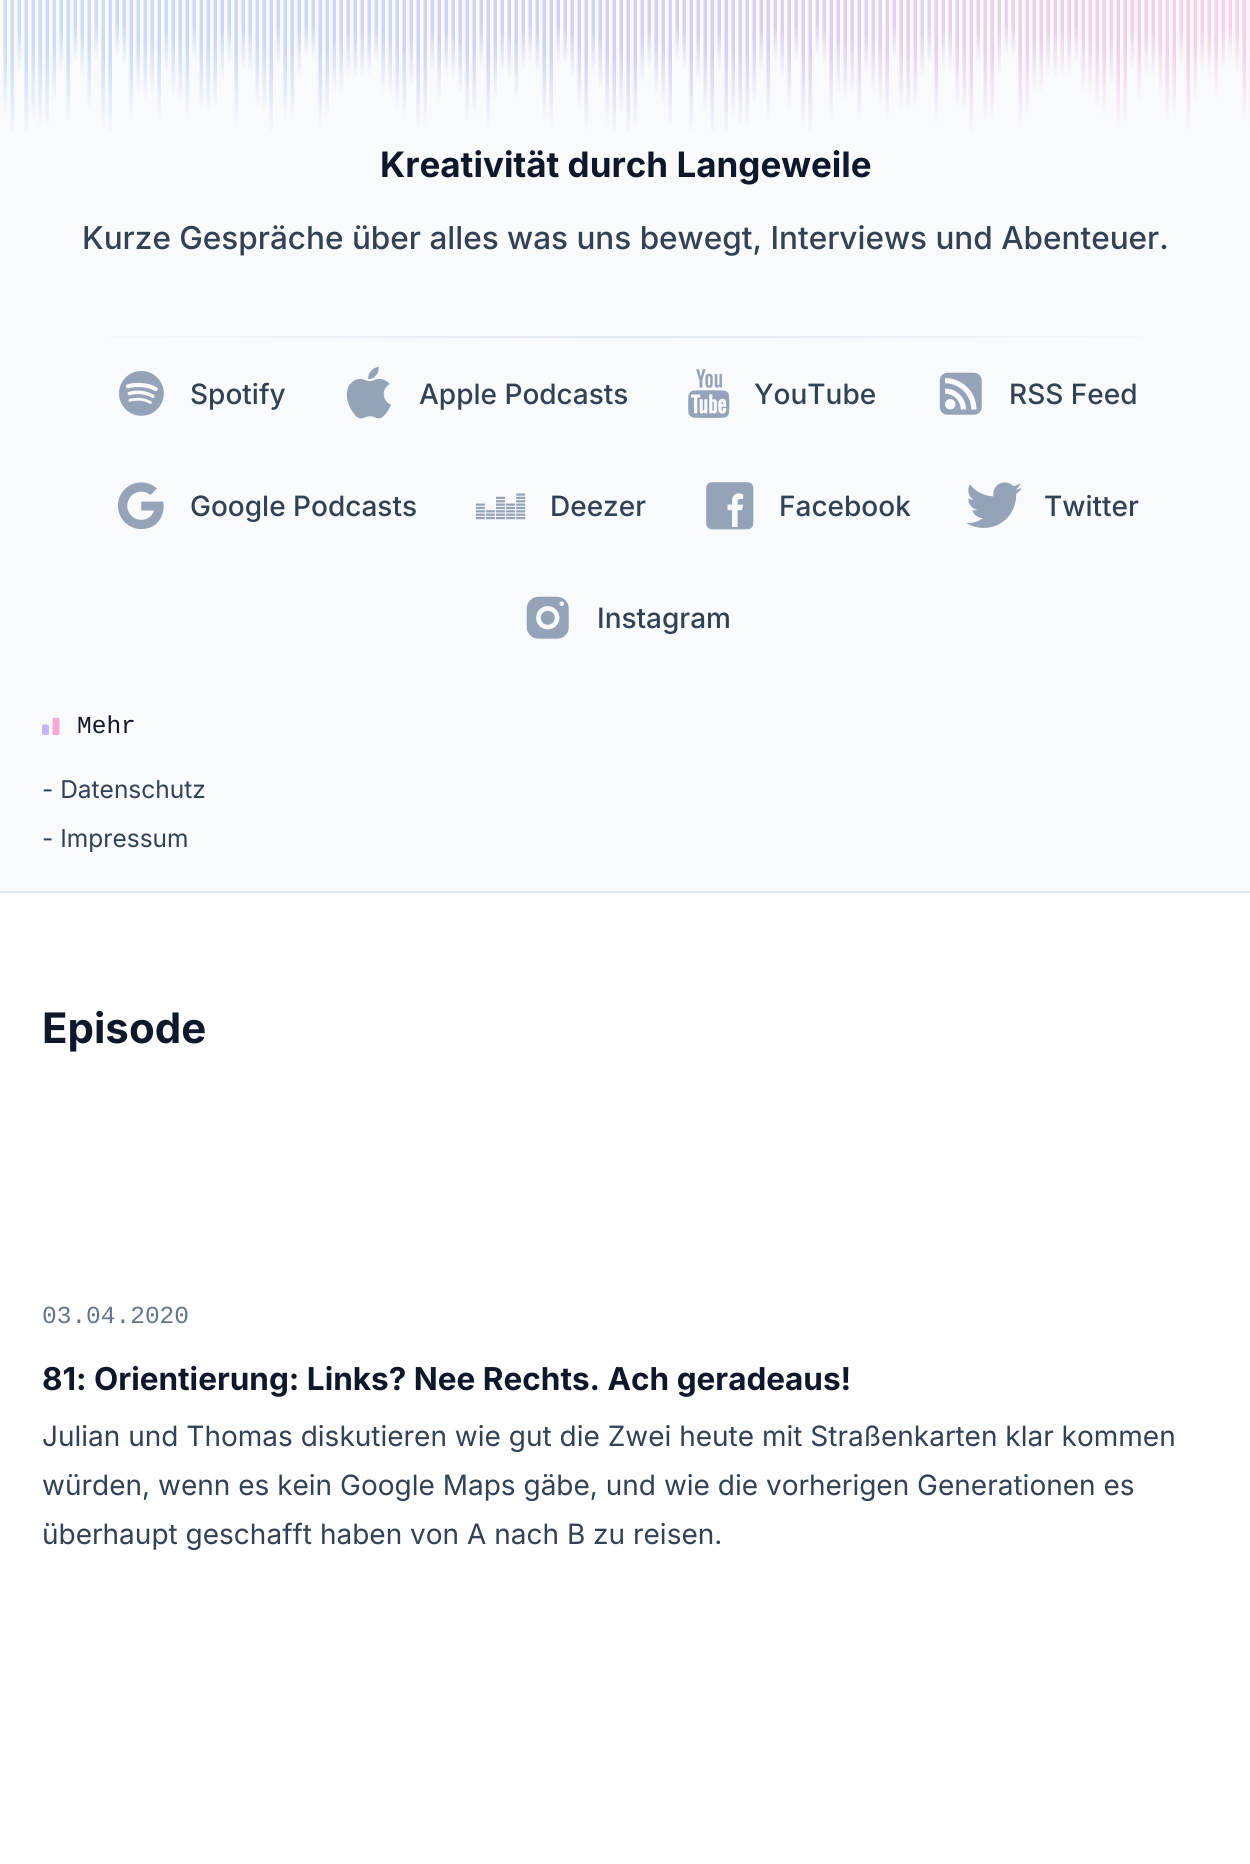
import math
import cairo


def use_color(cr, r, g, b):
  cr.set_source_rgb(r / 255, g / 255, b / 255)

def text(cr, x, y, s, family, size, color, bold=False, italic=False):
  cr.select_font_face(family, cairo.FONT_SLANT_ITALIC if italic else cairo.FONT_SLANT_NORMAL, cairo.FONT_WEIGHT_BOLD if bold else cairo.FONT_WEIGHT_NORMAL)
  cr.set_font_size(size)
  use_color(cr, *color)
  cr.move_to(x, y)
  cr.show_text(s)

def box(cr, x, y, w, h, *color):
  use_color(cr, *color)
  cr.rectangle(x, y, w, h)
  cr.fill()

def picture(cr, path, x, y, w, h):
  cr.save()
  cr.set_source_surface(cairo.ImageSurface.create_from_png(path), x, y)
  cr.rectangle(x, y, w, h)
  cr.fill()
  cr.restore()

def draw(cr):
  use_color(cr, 255, 255, 255)
  cr.paint()
  box(cr, 0, 0, 1250, 891, 248, 250, 252)
  gradient = cairo.LinearGradient(42, 337, 1209, 337)
  gradient.add_color_stop_rgba(0, 0.973, 0.98, 0.988, 1)
  gradient.add_color_stop_rgba(0.5, 0.886, 0.91, 0.941, 1)
  gradient.add_color_stop_rgba(1, 0.973, 0.98, 0.988, 1)
  cr.set_source(gradient)
  cr.rectangle(108, 336, 1035, 2)
  cr.fill()
  picture(cr, "img_01.png", 119, 371, 45, 45)
  picture(cr, "img_02.png", 346, 366, 45, 53)
  picture(cr, "img_03.png", 688, 369, 42, 49)
  picture(cr, "img_04.png", 939, 372, 43, 43)
  picture(cr, "img_05.png", 117, 482, 47, 48)
  picture(cr, "img_06.png", 475, 493, 51, 27)
  picture(cr, "img_07.png", 706, 482, 48, 48)
  picture(cr, "img_08.png", 966, 482, 56, 46)
  picture(cr, "img_09.png", 526, 596, 43, 43)
  picture(cr, "img_10.png", 42, 718, 18, 17)
  box(cr, 0, 891, 1250, 2, 226, 232, 240)
  picture(cr, "img_11.png", 3, 0, 1247, 131)
  text(cr, 380, 177, "Kreativität durch Langeweile", "Inter", 35, (15, 23, 42), bold=True)
  text(cr, 82, 249, "Kurze Gespräche über alles was uns bewegt, Interviews und Abenteuer.", "Inter Medium", 31.5, (51, 65, 85))
  text(cr, 190, 404, "Spotify", "Inter Medium", 28, (51, 65, 85))
  text(cr, 419, 404, "Apple Podcasts", "Inter Medium", 28, (51, 65, 85))
  text(cr, 754, 404, "YouTube", "Inter Medium", 28, (51, 65, 85))
  text(cr, 1009, 404, "RSS Feed", "Inter Medium", 28, (51, 65, 85))
  text(cr, 190, 516, "Google Podcasts", "Inter Medium", 28, (51, 65, 85))
  text(cr, 550, 516, "Deezer", "Inter Medium", 28, (51, 65, 85))
  text(cr, 779, 516, "Facebook", "Inter Medium", 28, (51, 65, 85))
  text(cr, 1044, 516, "Twitter", "Inter Medium", 28, (51, 65, 85))
  text(cr, 597, 628, "Instagram", "Inter Medium", 28, (51, 65, 85))
  text(cr, 77, 733, "Mehr", "Liberation Mono", 24.5, (15, 23, 42))
  text(cr, 42, 798, "- Datenschutz", "Inter", 24.5, (51, 65, 85))
  text(cr, 42, 847, "- Impressum", "Inter", 24.5, (51, 65, 85))
  text(cr, 42, 1043, "Episode", "Inter", 42, (15, 23, 42), bold=True)
  text(cr, 42, 1323, "03.04.2020", "Liberation Mono", 24.5, (100, 116, 139))
  text(cr, 42, 1390, "81: Orientierung: Links? Nee Rechts. Ach geradeaus!", "Inter", 31.5, (15, 23, 42), bold=True)
  text(cr, 42, 1446, "Julian und Thomas diskutieren wie gut die Zwei heute mit Straßenkarten klar kommen", "Inter", 28, (51, 65, 85))
  text(cr, 42, 1495, "würden, wenn es kein Google Maps gäbe, und wie die vorherigen Generationen es", "Inter", 28, (51, 65, 85))
  text(cr, 42, 1544, "überhaupt geschafft haben von A nach B zu reisen.", "Inter", 28, (51, 65, 85))


surface = cairo.ImageSurface(cairo.FORMAT_RGB24, 1250, 1864)
cr = cairo.Context(surface)
options = cairo.FontOptions()
options.set_hint_metrics(cairo.HINT_METRICS_OFF)
options.set_hint_style(cairo.HINT_STYLE_NONE)
cr.set_font_options(options)
cr.set_miter_limit(4)
draw(cr)
surface.write_to_png("out.png")
